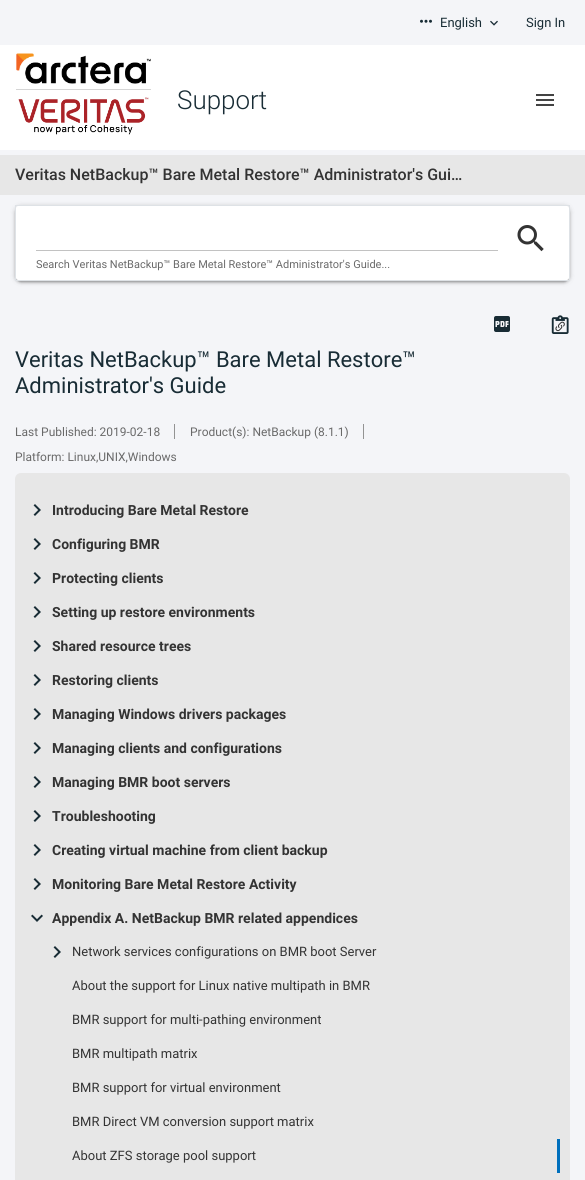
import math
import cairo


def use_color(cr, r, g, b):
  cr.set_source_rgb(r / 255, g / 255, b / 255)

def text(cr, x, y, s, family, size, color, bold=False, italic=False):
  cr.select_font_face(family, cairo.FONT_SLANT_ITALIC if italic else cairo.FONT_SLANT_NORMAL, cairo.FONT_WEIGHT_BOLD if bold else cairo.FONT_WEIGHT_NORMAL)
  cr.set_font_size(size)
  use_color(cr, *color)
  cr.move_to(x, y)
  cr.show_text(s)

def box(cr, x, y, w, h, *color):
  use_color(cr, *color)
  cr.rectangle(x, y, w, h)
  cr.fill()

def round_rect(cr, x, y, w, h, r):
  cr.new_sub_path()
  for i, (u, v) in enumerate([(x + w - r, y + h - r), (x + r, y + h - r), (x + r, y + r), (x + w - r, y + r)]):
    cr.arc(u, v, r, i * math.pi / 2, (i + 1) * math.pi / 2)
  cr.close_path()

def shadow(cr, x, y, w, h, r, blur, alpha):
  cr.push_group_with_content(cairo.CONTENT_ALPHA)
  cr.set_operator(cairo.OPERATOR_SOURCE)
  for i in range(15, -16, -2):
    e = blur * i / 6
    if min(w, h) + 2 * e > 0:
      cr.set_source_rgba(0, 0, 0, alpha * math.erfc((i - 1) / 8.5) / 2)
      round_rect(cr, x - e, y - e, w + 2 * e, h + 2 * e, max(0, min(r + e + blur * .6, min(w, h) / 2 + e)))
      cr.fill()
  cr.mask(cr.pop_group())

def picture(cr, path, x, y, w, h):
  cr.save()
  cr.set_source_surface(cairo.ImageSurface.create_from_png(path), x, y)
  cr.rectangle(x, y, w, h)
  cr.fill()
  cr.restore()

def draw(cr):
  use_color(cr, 244, 245, 248)
  cr.paint()
  picture(cr, "img_01.png", 420, 19, 12, 4)
  picture(cr, "img_02.png", 490, 20, 8, 6)
  box(cr, 0, 45, 585, 105, 255, 255, 255)
  picture(cr, "img_03.png", 16, 53, 135, 31)
  box(cr, 16, 89, 135, 1, 213, 213, 213)
  picture(cr, "img_04.png", 18, 97, 131, 38)
  picture(cr, "img_05.png", 536, 94, 18, 12)
  box(cr, 0, 155, 585, 40, 231, 231, 231)
  use_color(cr, 0, 0, 0)
  shadow(cr, 17, 210, 551, 72, 4, 0.5, 0.12)
  shadow(cr, 15, 207, 555, 76, 6, 1, 0.14)
  shadow(cr, 15, 206, 555, 76, 6, 2.5, 0.2)
  use_color(cr, 255, 255, 255)
  round_rect(cr, 15, 205, 555, 76, 6)
  cr.fill()
  cr.rectangle(15.5, 205.5, 554, 75)
  use_color(cr, 222, 226, 230)
  cr.set_line_width(1)
  cr.stroke()
  box(cr, 36, 250, 462, 1, 194, 194, 194)
  picture(cr, "img_06.png", 517, 225, 27, 27)
  picture(cr, "img_07.png", 494, 316, 16, 16)
  picture(cr, "img_08.png", 551, 315, 18, 19)
  picture(cr, "img_09.png", 555, 321, 10, 11)
  box(cr, 174, 424, 1, 15, 147, 147, 147)
  box(cr, 363, 424, 1, 15, 147, 147, 147)
  use_color(cr, 231, 231, 231)
  round_rect(cr, 15, 473, 555, 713, 6)
  cr.fill()
  picture(cr, "img_10.png", 33, 504, 8, 12)
  picture(cr, "img_10.png", 33, 538, 8, 12)
  picture(cr, "img_10.png", 33, 572, 8, 12)
  picture(cr, "img_10.png", 33, 606, 8, 12)
  picture(cr, "img_10.png", 33, 640, 8, 12)
  picture(cr, "img_10.png", 33, 674, 8, 12)
  picture(cr, "img_10.png", 33, 708, 8, 12)
  picture(cr, "img_10.png", 33, 742, 8, 12)
  picture(cr, "img_10.png", 33, 776, 8, 12)
  picture(cr, "img_10.png", 33, 810, 8, 12)
  picture(cr, "img_10.png", 33, 844, 8, 12)
  picture(cr, "img_10.png", 33, 878, 8, 12)
  picture(cr, "img_11.png", 31, 914, 12, 8)
  picture(cr, "img_10.png", 53, 946, 8, 12)
  box(cr, 557, 1139, 3, 34, 0, 112, 189)
  text(cr, 440, 27, "English", "Roboto", 13, (24, 44, 53))
  text(cr, 526, 27, "Sign In", "Roboto", 13, (24, 44, 53))
  text(cr, 177, 109, "Support", "Roboto Light", 26, (24, 44, 53))
  text(cr, 15, 180, "Veritas NetBackup™ Bare Metal Restore™ Administrator's Gui…", "Roboto Medium", 16, (51, 51, 51))
  text(cr, 36, 268, "Search Veritas NetBackup™ Bare Metal Restore™ Administrator's Guide...", "Roboto", 11, (105, 105, 105))
  text(cr, 15, 367, "Veritas NetBackup™ Bare Metal Restore™", "Roboto", 22, (24, 44, 53))
  text(cr, 15, 393, "Administrator's Guide", "Roboto", 22, (24, 44, 53))
  text(cr, 15, 436, "Last Published: 2019-02-18", "Roboto", 12, (105, 105, 105))
  text(cr, 190, 436, "Product(s): NetBackup (8.1.1)", "Roboto", 12, (105, 105, 105))
  text(cr, 15, 461, "Platform: Linux,UNIX,Windows", "Roboto", 12, (105, 105, 105))
  text(cr, 52, 515, "Introducing Bare Metal Restore", "Roboto", 14, (51, 51, 51), bold=True)
  text(cr, 52, 549, "Configuring BMR", "Roboto", 14, (51, 51, 51), bold=True)
  text(cr, 52, 583, "Protecting clients", "Roboto", 14, (51, 51, 51), bold=True)
  text(cr, 52, 617, "Setting up restore environments", "Roboto", 14, (51, 51, 51), bold=True)
  text(cr, 52, 651, "Shared resource trees", "Roboto", 14, (51, 51, 51), bold=True)
  text(cr, 52, 685, "Restoring clients", "Roboto", 14, (51, 51, 51), bold=True)
  text(cr, 52, 719, "Managing Windows drivers packages", "Roboto", 14, (51, 51, 51), bold=True)
  text(cr, 52, 753, "Managing clients and configurations", "Roboto", 14, (51, 51, 51), bold=True)
  text(cr, 52, 787, "Managing BMR boot servers", "Roboto", 14, (51, 51, 51), bold=True)
  text(cr, 52, 821, "Troubleshooting", "Roboto", 14, (51, 51, 51), bold=True)
  text(cr, 52, 855, "Creating virtual machine from client backup", "Roboto", 14, (51, 51, 51), bold=True)
  text(cr, 52, 889, "Monitoring Bare Metal Restore Activity", "Roboto", 14, (51, 51, 51), bold=True)
  text(cr, 52, 923, "Appendix A. NetBackup BMR related appendices", "Roboto", 14, (51, 51, 51), bold=True)
  text(cr, 72, 956, "Network services configurations on BMR boot Server", "Roboto", 13, (51, 51, 51))
  text(cr, 72, 990, "About the support for Linux native multipath in BMR", "Roboto", 13, (51, 51, 51))
  text(cr, 72, 1024, "BMR support for multi-pathing environment", "Roboto", 13, (51, 51, 51))
  text(cr, 72, 1058, "BMR multipath matrix", "Roboto", 13, (51, 51, 51))
  text(cr, 72, 1092, "BMR support for virtual environment", "Roboto", 13, (51, 51, 51))
  text(cr, 72, 1126, "BMR Direct VM conversion support matrix", "Roboto", 13, (51, 51, 51))
  text(cr, 72, 1160, "About ZFS storage pool support", "Roboto", 13, (51, 51, 51))


surface = cairo.ImageSurface(cairo.FORMAT_RGB24, 585, 1180)
cr = cairo.Context(surface)
options = cairo.FontOptions()
options.set_hint_metrics(cairo.HINT_METRICS_OFF)
options.set_hint_style(cairo.HINT_STYLE_NONE)
cr.set_font_options(options)
cr.set_miter_limit(4)
draw(cr)
surface.write_to_png("out.png")
